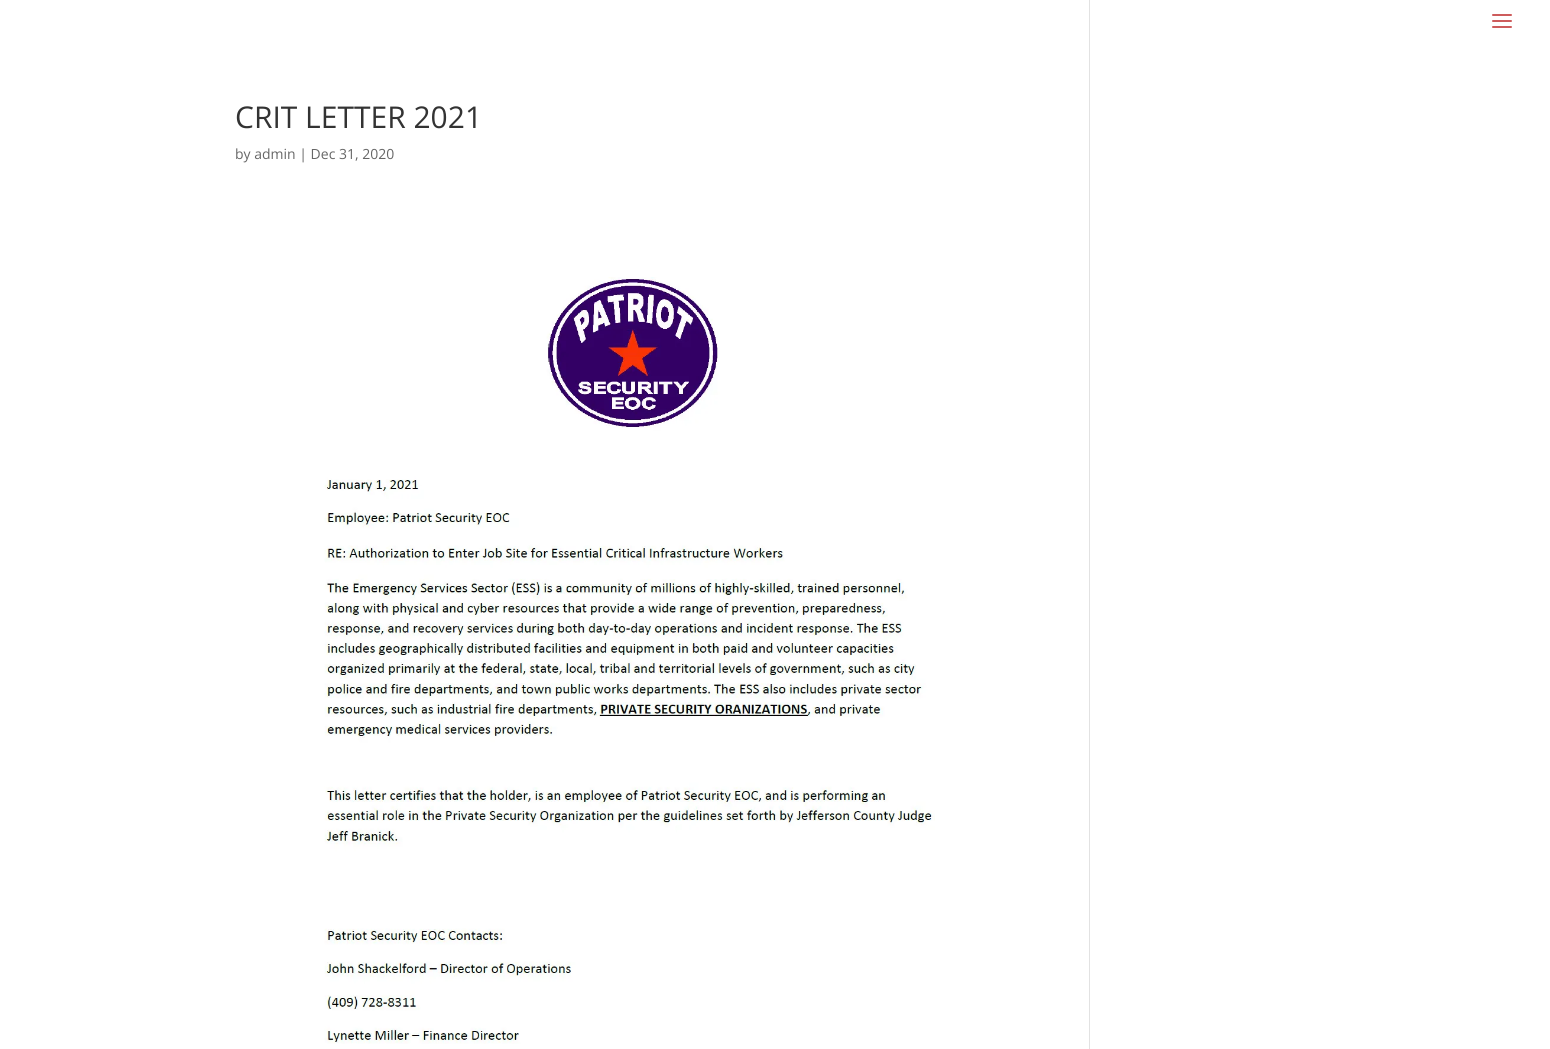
import math
import cairo


def use_color(cr, r, g, b):
  cr.set_source_rgb(r / 255, g / 255, b / 255)

def text(cr, x, y, s, family, size, color, bold=False, italic=False):
  cr.select_font_face(family, cairo.FONT_SLANT_ITALIC if italic else cairo.FONT_SLANT_NORMAL, cairo.FONT_WEIGHT_BOLD if bold else cairo.FONT_WEIGHT_NORMAL)
  cr.set_font_size(size)
  use_color(cr, *color)
  cr.move_to(x, y)
  cr.show_text(s)

def box(cr, x, y, w, h, *color):
  use_color(cr, *color)
  cr.rectangle(x, y, w, h)
  cr.fill()

def picture(cr, path, x, y, w, h):
  cr.save()
  cr.set_source_surface(cairo.ImageSurface.create_from_png(path), x, y)
  cr.rectangle(x, y, w, h)
  cr.fill()
  cr.restore()

def draw(cr):
  use_color(cr, 255, 255, 255)
  cr.paint()
  picture(cr, "img_01.png", 1492, 14, 20, 14)
  picture(cr, "img_02.png", 324, 277, 611, 767)
  box(cr, 1089, 0, 1, 1049, 226, 226, 226)
  text(cr, 235, 128, "CRIT LETTER 2021", "Open Sans", 30, (51, 51, 51))
  text(cr, 235, 159, "by admin | Dec 31, 2020", "Open Sans", 14, (102, 102, 102))


surface = cairo.ImageSurface(cairo.FORMAT_RGB24, 1550, 1049)
cr = cairo.Context(surface)
options = cairo.FontOptions()
options.set_hint_metrics(cairo.HINT_METRICS_OFF)
options.set_hint_style(cairo.HINT_STYLE_NONE)
cr.set_font_options(options)
cr.set_miter_limit(4)
draw(cr)
surface.write_to_png("out.png")
